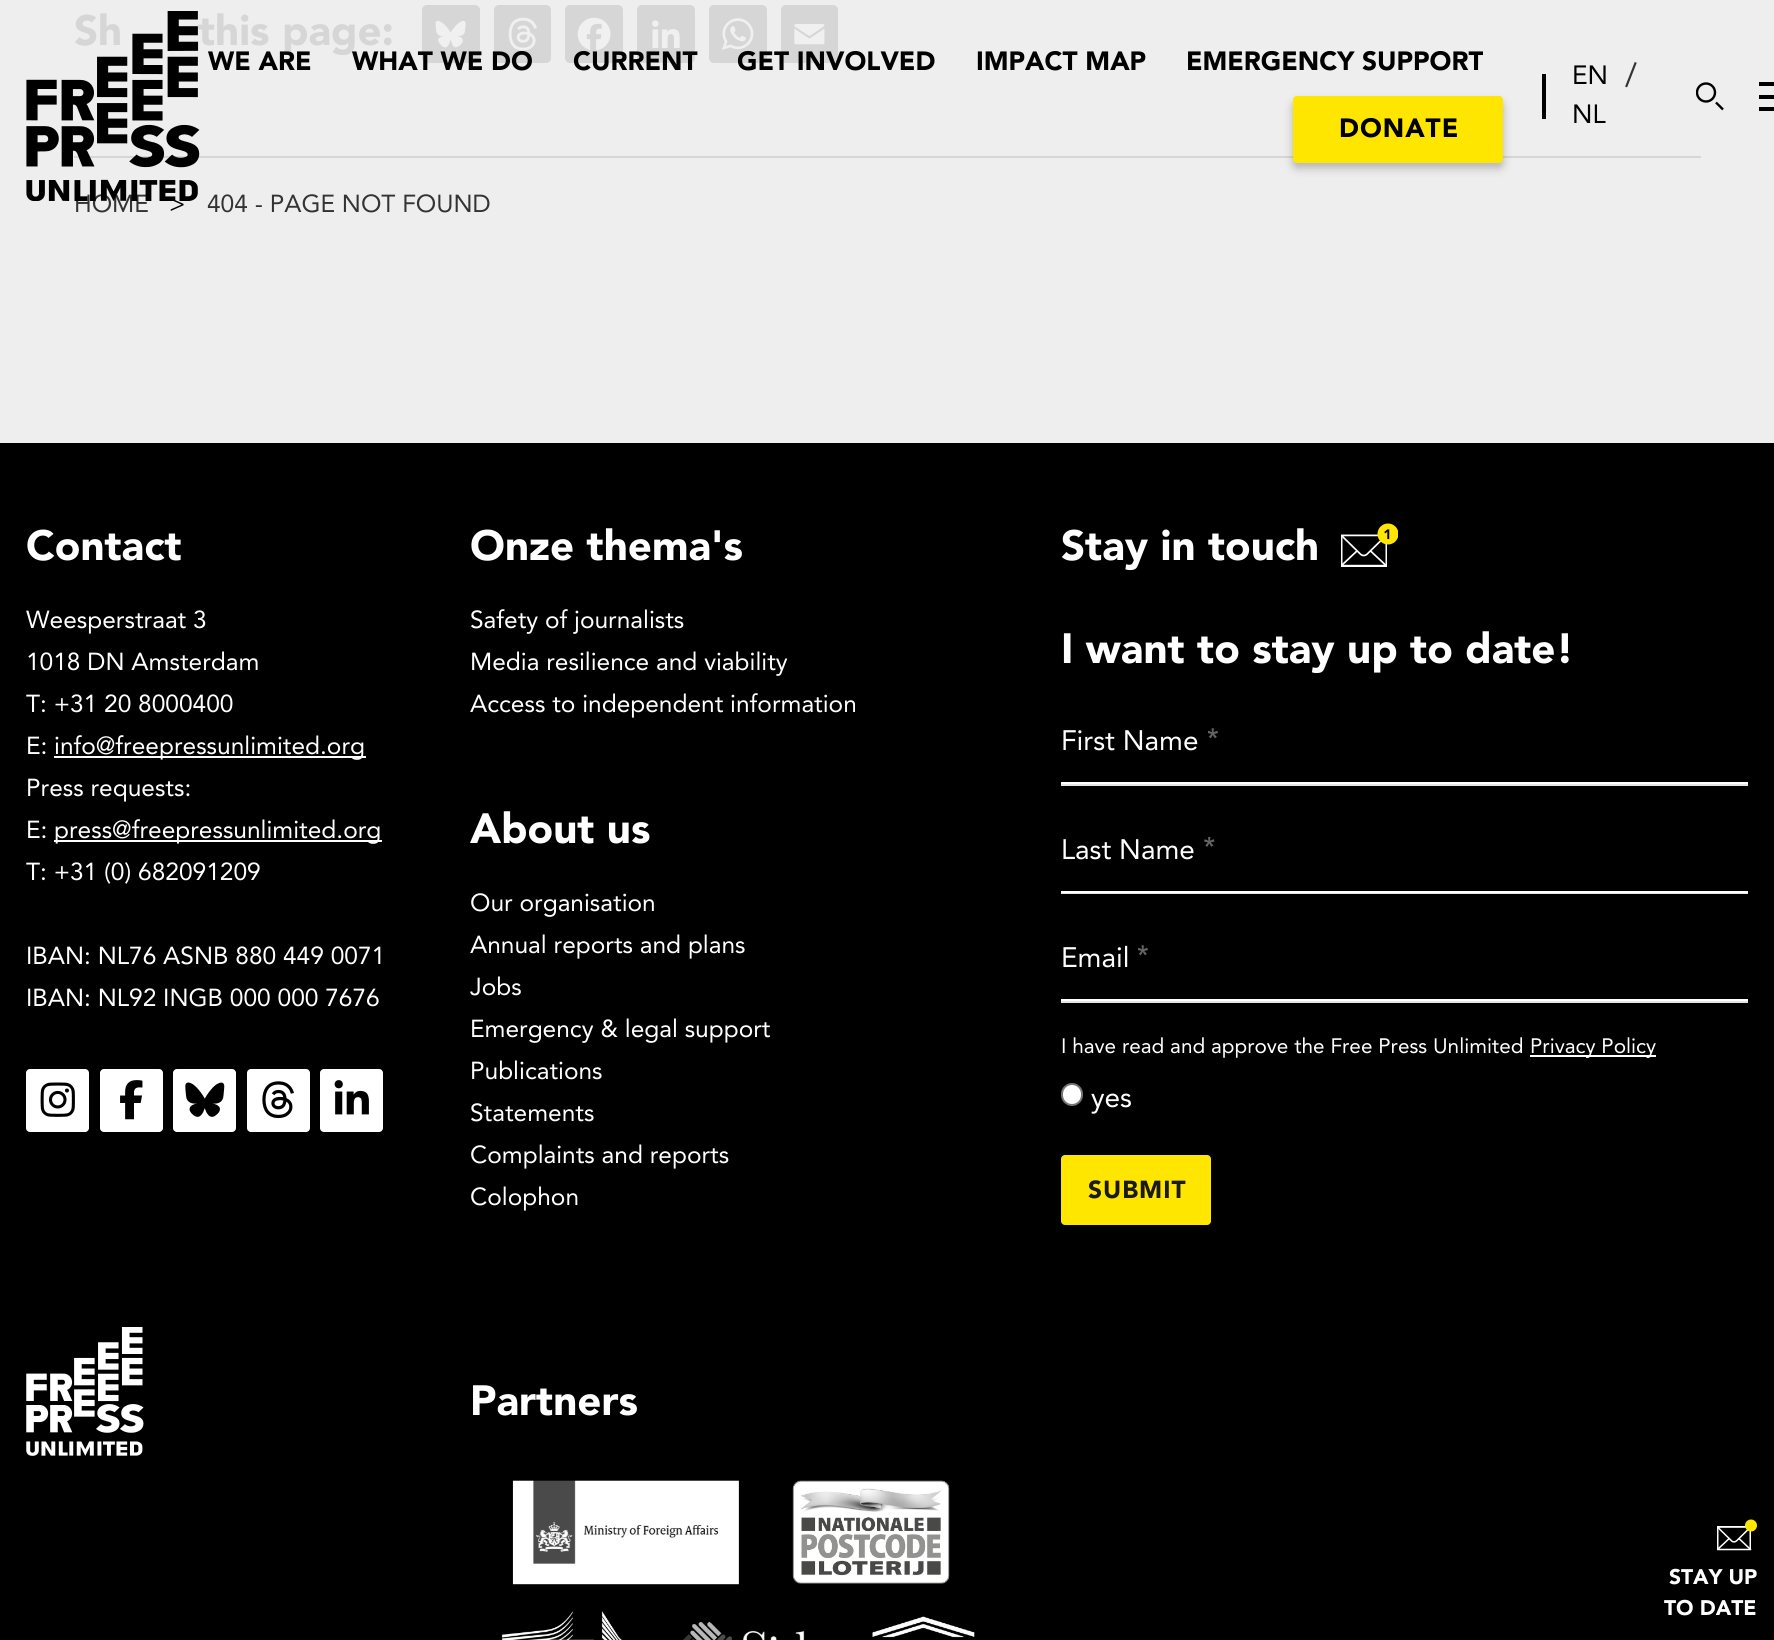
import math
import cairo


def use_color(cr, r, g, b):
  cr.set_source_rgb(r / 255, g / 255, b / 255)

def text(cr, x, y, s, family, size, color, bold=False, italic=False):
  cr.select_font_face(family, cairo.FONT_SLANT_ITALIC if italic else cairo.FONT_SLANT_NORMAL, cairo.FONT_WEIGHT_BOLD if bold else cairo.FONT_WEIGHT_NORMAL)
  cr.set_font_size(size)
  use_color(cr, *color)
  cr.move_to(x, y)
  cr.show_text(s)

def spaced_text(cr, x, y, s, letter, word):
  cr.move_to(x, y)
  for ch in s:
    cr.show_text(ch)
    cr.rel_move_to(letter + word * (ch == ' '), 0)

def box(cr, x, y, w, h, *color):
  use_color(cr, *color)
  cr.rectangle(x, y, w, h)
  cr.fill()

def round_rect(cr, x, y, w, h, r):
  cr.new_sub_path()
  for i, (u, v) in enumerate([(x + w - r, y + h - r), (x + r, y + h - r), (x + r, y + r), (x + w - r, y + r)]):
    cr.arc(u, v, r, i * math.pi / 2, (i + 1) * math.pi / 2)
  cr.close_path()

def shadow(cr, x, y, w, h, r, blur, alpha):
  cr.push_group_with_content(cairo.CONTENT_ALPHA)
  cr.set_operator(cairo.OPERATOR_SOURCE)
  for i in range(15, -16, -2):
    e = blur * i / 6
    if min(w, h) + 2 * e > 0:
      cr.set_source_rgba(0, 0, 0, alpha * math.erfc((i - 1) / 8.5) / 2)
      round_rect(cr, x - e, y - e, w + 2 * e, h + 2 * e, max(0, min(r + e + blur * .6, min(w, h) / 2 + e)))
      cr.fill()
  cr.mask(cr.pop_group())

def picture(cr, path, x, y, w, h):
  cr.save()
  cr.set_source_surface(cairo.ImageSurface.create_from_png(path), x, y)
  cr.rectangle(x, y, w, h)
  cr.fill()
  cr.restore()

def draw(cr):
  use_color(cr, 238, 238, 238)
  cr.paint()
  use_color(cr, 214, 214, 214)
  round_rect(cr, 422, 5, 58, 58, 5)
  cr.fill()
  picture(cr, "img_01.png", 435, 20, 31, 28)
  round_rect(cr, 494, 5, 57, 58, 5)
  cr.fill()
  picture(cr, "img_02.png", 508, 17, 29, 34)
  round_rect(cr, 565, 5, 58, 58, 5)
  cr.fill()
  picture(cr, "img_03.png", 577, 17, 34, 34)
  round_rect(cr, 637, 5, 58, 58, 5)
  cr.fill()
  picture(cr, "img_04.png", 652, 20, 28, 28)
  round_rect(cr, 709, 5, 58, 58, 5)
  cr.fill()
  picture(cr, "img_05.png", 722, 18, 32, 32)
  round_rect(cr, 781, 5, 57, 58, 5)
  cr.fill()
  picture(cr, "img_06.png", 794, 24, 31, 21)
  box(cr, 74, 156, 1627, 2, 214, 214, 214)
  use_color(cr, 0, 0, 0)
  shadow(cr, 1293, 102, 210, 66, 4, 4.5, 0.25)
  use_color(cr, 255, 230, 0)
  round_rect(cr, 1293, 96, 210, 67, 4)
  cr.fill()
  box(cr, 1542, 74, 4, 45, 0, 0, 0)
  cr.save()
  cr.rectangle(1696, 82, 28, 28)
  cr.clip()
  cr.arc(1706, 92.5, 9, 0, 2 * math.pi)
  cr.set_line_width(2.4)
  cr.stroke()
  cr.restore()
  cr.new_path()
  cr.move_to(1716, 102.5)
  cr.line_to(1723, 109.5)
  cr.set_line_width(2.4)
  cr.stroke()
  box(cr, 1759, 82, 15, 4, 0, 0, 0)
  box(cr, 1759, 95, 15, 4, 0, 0, 0)
  box(cr, 1759, 107, 15, 4, 0, 0, 0)
  box(cr, 0, 443, 1774, 1197, 0, 0, 0)
  picture(cr, "img_08.png", 26, 1327, 118, 129)
  box(cr, 54, 756, 312, 2, 255, 255, 255)
  box(cr, 54, 840, 328, 2, 255, 255, 255)
  round_rect(cr, 26, 1069, 63, 63, 4)
  cr.fill()
  picture(cr, "img_09.png", 40, 1082, 35, 35)
  round_rect(cr, 100, 1069, 63, 63, 4)
  cr.fill()
  picture(cr, "img_10.png", 120, 1080, 23, 40)
  round_rect(cr, 173, 1069, 63, 63, 4)
  cr.fill()
  picture(cr, "img_11.png", 185, 1082, 40, 35)
  round_rect(cr, 247, 1069, 63, 63, 4)
  cr.fill()
  picture(cr, "img_12.png", 262, 1081, 32, 38)
  round_rect(cr, 320, 1069, 63, 63, 4)
  cr.fill()
  picture(cr, "img_13.png", 334, 1080, 35, 35)
  picture(cr, "img_14.png", 501, 1480, 474, 160)
  picture(cr, "img_15.png", 1341, 523, 57, 44)
  picture(cr, "img_16.png", 1208, 728, 10, 11)
  box(cr, 1061, 784, 687, 2, 229, 229, 229)
  box(cr, 1061, 782, 687, 2, 255, 255, 255)
  picture(cr, "img_17.png", 1204, 837, 11, 10)
  box(cr, 1061, 893, 687, 1, 229, 229, 229)
  box(cr, 1061, 891, 687, 2, 255, 255, 255)
  picture(cr, "img_16.png", 1138, 945, 10, 11)
  box(cr, 1061, 1001, 687, 2, 229, 229, 229)
  box(cr, 1061, 999, 687, 2, 255, 255, 255)
  box(cr, 1530, 1055, 126, 2, 255, 255, 255)
  round_rect(cr, 1062, 1084, 20, 21, 10)
  cr.fill_preserve()
  use_color(cr, 118, 118, 118)
  cr.set_line_width(2)
  cr.stroke()
  gradient = cairo.LinearGradient(786, 1097, 1184, 1283)
  gradient.add_color_stop_rgba(0.5, 0, 0, 0, 1)
  gradient.add_color_stop_rgba(0.5, 1, 0.902, 0, 1)
  cr.set_source(gradient)
  round_rect(cr, 1061, 1155, 150, 70, 4)
  cr.fill()
  picture(cr, "img_18.png", 1717, 1519, 40, 32)
  text(cr, 74, 45, "Sh", "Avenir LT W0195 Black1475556 Black", 42, (214, 214, 214))
  text(cr, 198, 45, "this page:", "Avenir LT W0195 Black1475556 Black", 42, (214, 214, 214))
  text(cr, 74, 212, "HOME", "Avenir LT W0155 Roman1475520", 24.5, (51, 51, 51))
  text(cr, 169, 212, ">", "Avenir LT W0155 Roman1475520", 24.5, (0, 0, 0))
  text(cr, 207, 212, "404 - PAGE NOT FOUND", "Avenir LT W0155 Roman1475520", 24.5, (51, 51, 51))
  picture(cr, "img_07.png", 26, 11, 174, 190)
  text(cr, 208, 70, "WE ARE", "Avenir LT W0195 Black1475556 Black", 26.25, (0, 0, 0))
  text(cr, 352, 70, "WHAT WE DO", "Avenir LT W0195 Black1475556 Black", 26.25, (0, 0, 0))
  text(cr, 573, 70, "CURRENT", "Avenir LT W0195 Black1475556 Black", 26.25, (0, 0, 0))
  text(cr, 737, 70, "GET INVOLVED", "Avenir LT W0195 Black1475556 Black", 26.25, (0, 0, 0))
  text(cr, 976, 70, "IMPACT MAP", "Avenir LT W0195 Black1475556 Black", 26.25, (0, 0, 0))
  text(cr, 1186, 70, "EMERGENCY SUPPORT", "Avenir LT W0195 Black1475556 Black", 26.25, (0, 0, 0))
  spaced_text(cr, 1339, 137, "DONATE", 1, 0)
  text(cr, 1572, 84, "EN", "Avenir LT W0155 Roman1475520", 26.25, (0, 0, 0))
  text(cr, 1625, 86, "/", "Avenir LT W0155 Roman1475520", 32, (51, 51, 51))
  text(cr, 1572, 123, "NL", "Avenir LT W0155 Roman1475520", 26.25, (0, 0, 0))
  text(cr, 26, 560, "Contact", "Avenir LT W0195 Black1475556 Black", 42, (255, 255, 255))
  text(cr, 26, 628, "Weesperstraat 3", "Avenir LT W0155 Roman1475520", 24.5, (255, 255, 255))
  text(cr, 26, 670, "1018 DN Amsterdam", "Avenir LT W0155 Roman1475520", 24.5, (255, 255, 255))
  text(cr, 26, 712, "T: +31 20 8000400", "Avenir LT W0155 Roman1475520", 24.5, (255, 255, 255))
  text(cr, 26, 754, "E:", "Avenir LT W0155 Roman1475520", 24.5, (255, 255, 255))
  text(cr, 54, 754, "info@freepressunlimited.org", "Avenir LT W0155 Roman1475520", 24.5, (255, 255, 255))
  text(cr, 26, 796, "Press requests:", "Avenir LT W0155 Roman1475520", 24.5, (255, 255, 255))
  text(cr, 26, 838, "E:", "Avenir LT W0155 Roman1475520", 24.5, (255, 255, 255))
  text(cr, 54, 838, "press@freepressunlimited.org", "Avenir LT W0155 Roman1475520", 24.5, (255, 255, 255))
  text(cr, 26, 880, "T: +31 (0) 682091209", "Avenir LT W0155 Roman1475520", 24.5, (255, 255, 255))
  text(cr, 26, 964, "IBAN: NL76 ASNB 880 449 0071", "Avenir LT W0155 Roman1475520", 24.5, (255, 255, 255))
  text(cr, 26, 1006, "IBAN: NL92 INGB 000 000 7676", "Avenir LT W0155 Roman1475520", 24.5, (255, 255, 255))
  text(cr, 470, 560, "Onze thema's", "Avenir LT W0195 Black1475556 Black", 42, (255, 255, 255))
  text(cr, 470, 628, "Safety of journalists", "Avenir LT W0155 Roman1475520", 24.5, (255, 255, 255))
  text(cr, 470, 670, "Media resilience and viability", "Avenir LT W0155 Roman1475520", 24.5, (255, 255, 255))
  text(cr, 470, 712, "Access to independent information", "Avenir LT W0155 Roman1475520", 24.5, (255, 255, 255))
  text(cr, 470, 843, "About us", "Avenir LT W0195 Black1475556 Black", 42, (255, 255, 255))
  text(cr, 470, 911, "Our organisation", "Avenir LT W0155 Roman1475520", 24.5, (255, 255, 255))
  text(cr, 470, 953, "Annual reports and plans", "Avenir LT W0155 Roman1475520", 24.5, (255, 255, 255))
  text(cr, 470, 995, "Jobs", "Avenir LT W0155 Roman1475520", 24.5, (255, 255, 255))
  text(cr, 470, 1037, "Emergency & legal support", "Avenir LT W0155 Roman1475520", 24.5, (255, 255, 255))
  text(cr, 470, 1079, "Publications", "Avenir LT W0155 Roman1475520", 24.5, (255, 255, 255))
  text(cr, 470, 1121, "Statements", "Avenir LT W0155 Roman1475520", 24.5, (255, 255, 255))
  text(cr, 470, 1163, "Complaints and reports", "Avenir LT W0155 Roman1475520", 24.5, (255, 255, 255))
  text(cr, 470, 1205, "Colophon", "Avenir LT W0155 Roman1475520", 24.5, (255, 255, 255))
  text(cr, 470, 1415, "Partners", "Avenir LT W0195 Black1475556 Black", 42, (255, 255, 255))
  text(cr, 1061, 560, "Stay in touch", "Avenir LT W0195 Black1475556 Black", 42, (255, 255, 255))
  text(cr, 1061, 663, "I want to stay up to date!", "Avenir LT W0195 Black1475556 Black", 42, (255, 255, 255))
  text(cr, 1061, 750, "First Name", "Avenir LT W0155 Roman1475520", 28, (255, 255, 255))
  text(cr, 1061, 859, "Last Name", "Avenir LT W0155 Roman1475520", 28, (255, 255, 255))
  text(cr, 1061, 967, "Email", "Avenir LT W0155 Roman1475520", 28, (255, 255, 255))
  text(cr, 1061, 1053, "I have read and approve the Free Press Unlimited", "Avenir LT W0155 Roman1475520", 20.8, (255, 255, 255))
  text(cr, 1530, 1053, "Privacy Policy", "Avenir LT W0155 Roman1475520", 20.8, (255, 255, 255))
  text(cr, 1091, 1107, "yes", "Avenir LT W0155 Roman1475520", 28, (255, 255, 255))
  cr.select_font_face("Avenir LT W0195 Black1475556 Black")
  cr.set_font_size(24.5)
  use_color(cr, 26, 26, 26)
  spaced_text(cr, 1088, 1198, "SUBMIT", 1, 0)
  text(cr, 1669, 1584, "STAY UP", "Avenir LT W0195 Black1475556 Black", 21, (255, 255, 255))
  text(cr, 1664, 1615, "TO DATE", "Avenir LT W0195 Black1475556 Black", 21, (255, 255, 255))


surface = cairo.ImageSurface(cairo.FORMAT_RGB24, 1774, 1640)
cr = cairo.Context(surface)
options = cairo.FontOptions()
options.set_hint_metrics(cairo.HINT_METRICS_OFF)
options.set_hint_style(cairo.HINT_STYLE_NONE)
cr.set_font_options(options)
cr.set_miter_limit(4)
draw(cr)
surface.write_to_png("out.png")
